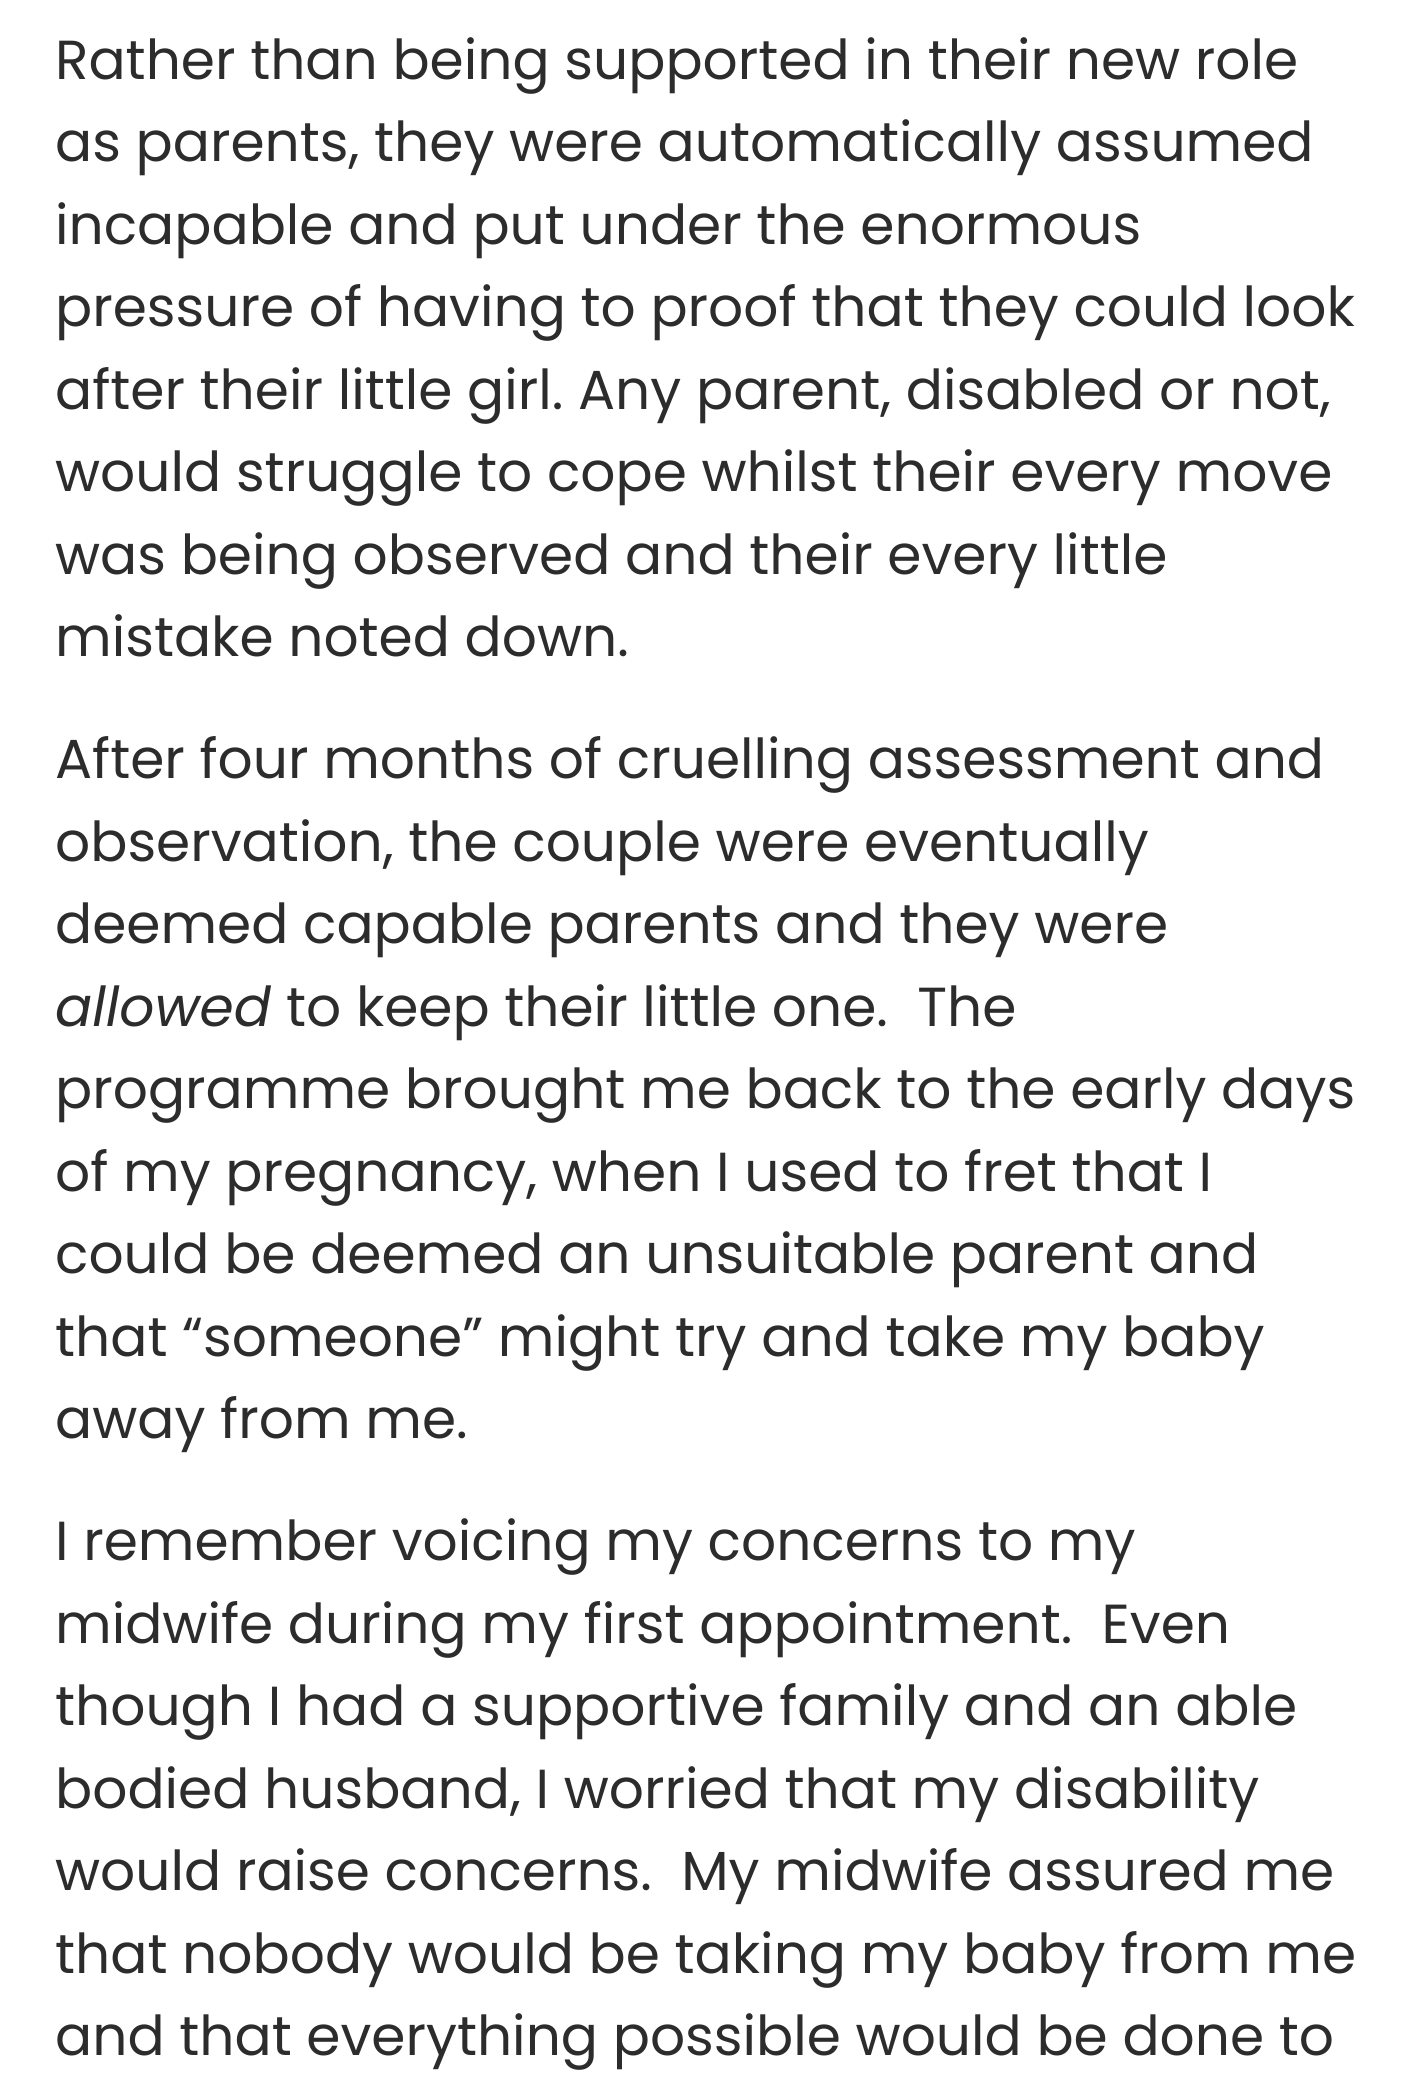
import math
import cairo


def use_color(cr, r, g, b):
  cr.set_source_rgb(r / 255, g / 255, b / 255)

def text(cr, x, y, s, family, size, color, bold=False, italic=False):
  cr.select_font_face(family, cairo.FONT_SLANT_ITALIC if italic else cairo.FONT_SLANT_NORMAL, cairo.FONT_WEIGHT_BOLD if bold else cairo.FONT_WEIGHT_NORMAL)
  cr.set_font_size(size)
  use_color(cr, *color)
  cr.move_to(x, y)
  cr.show_text(s)

def draw(cr):
  use_color(cr, 255, 255, 255)
  cr.paint()
  text(cr, 55, 79, "Rather than being supported in their new role", "Poppins", 55, (44, 44, 44))
  text(cr, 55, 161, "as parents, they were automatically assumed", "Poppins", 55, (44, 44, 44))
  text(cr, 55, 244, "incapable and put under the enormous", "Poppins", 55, (44, 44, 44))
  text(cr, 55, 326, "pressure of having to proof that they could look", "Poppins", 55, (44, 44, 44))
  text(cr, 55, 409, "after their little girl. Any parent, disabled or not,", "Poppins", 55, (44, 44, 44))
  text(cr, 55, 491, "would struggle to cope whilst their every move", "Poppins", 55, (44, 44, 44))
  text(cr, 55, 574, "was being observed and their every little", "Poppins", 55, (44, 44, 44))
  text(cr, 55, 656, "mistake noted down.", "Poppins", 55, (44, 44, 44))
  text(cr, 55, 778, "After four months of cruelling assessment and", "Poppins", 55, (44, 44, 44))
  text(cr, 55, 861, "observation, the couple were eventually", "Poppins", 55, (44, 44, 44))
  text(cr, 55, 943, "deemed capable parents and they were", "Poppins", 55, (44, 44, 44))
  text(cr, 55, 1026, "allowed", "Poppins", 55, (44, 44, 44), italic=True)
  text(cr, 286, 1026, "to keep their little one.  The", "Poppins", 55, (44, 44, 44))
  text(cr, 55, 1108, "programme brought me back to the early days", "Poppins", 55, (44, 44, 44))
  text(cr, 55, 1191, "of my pregnancy, when I used to fret that I", "Poppins", 55, (44, 44, 44))
  text(cr, 55, 1273, "could be deemed an unsuitable parent and", "Poppins", 55, (44, 44, 44))
  text(cr, 55, 1356, "that “someone” might try and take my baby", "Poppins", 55, (44, 44, 44))
  text(cr, 55, 1438, "away from me.", "Poppins", 55, (44, 44, 44))
  text(cr, 55, 1560, "I remember voicing my concerns to my", "Poppins", 55, (44, 44, 44))
  text(cr, 55, 1643, "midwife during my first appointment.  Even", "Poppins", 55, (44, 44, 44))
  text(cr, 55, 1725, "though I had a supportive family and an able", "Poppins", 55, (44, 44, 44))
  text(cr, 55, 1808, "bodied husband, I worried that my disability", "Poppins", 55, (44, 44, 44))
  text(cr, 55, 1890, "would raise concerns.  My midwife assured me", "Poppins", 55, (44, 44, 44))
  text(cr, 55, 1973, "that nobody would be taking my baby from me", "Poppins", 55, (44, 44, 44))
  text(cr, 55, 2055, "and that everything possible would be done to", "Poppins", 55, (44, 44, 44))


surface = cairo.ImageSurface(cairo.FORMAT_RGB24, 1411, 2079)
cr = cairo.Context(surface)
options = cairo.FontOptions()
options.set_hint_metrics(cairo.HINT_METRICS_OFF)
options.set_hint_style(cairo.HINT_STYLE_NONE)
cr.set_font_options(options)
cr.set_miter_limit(4)
draw(cr)
surface.write_to_png("out.png")
